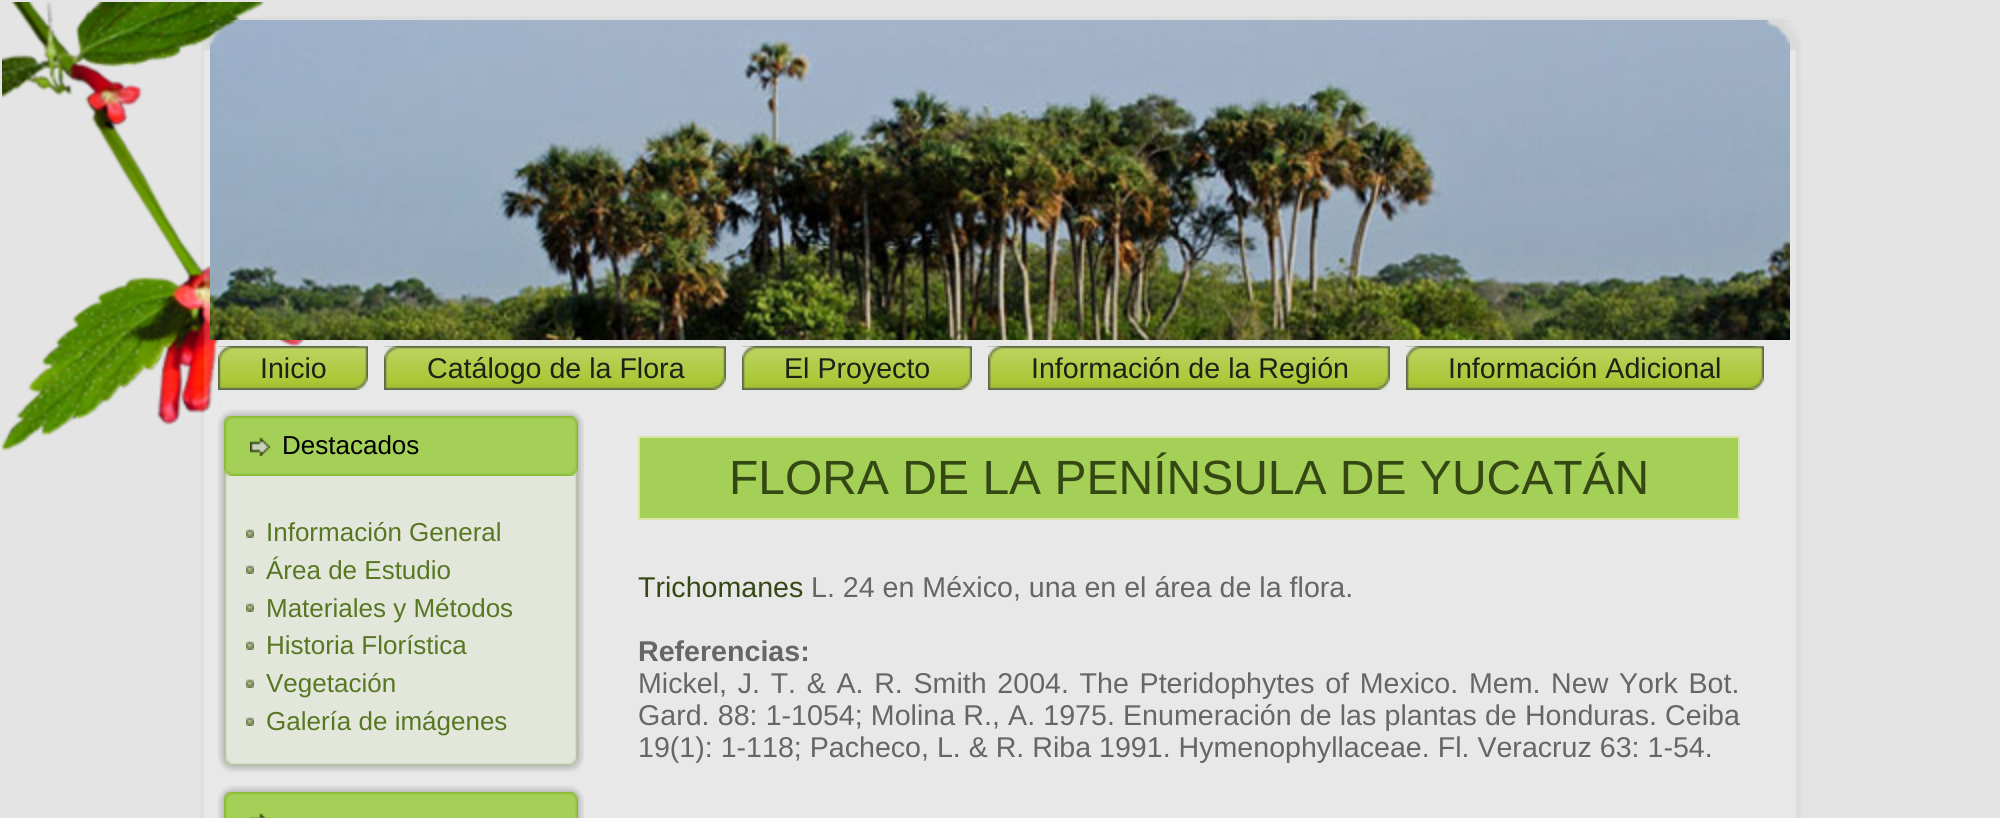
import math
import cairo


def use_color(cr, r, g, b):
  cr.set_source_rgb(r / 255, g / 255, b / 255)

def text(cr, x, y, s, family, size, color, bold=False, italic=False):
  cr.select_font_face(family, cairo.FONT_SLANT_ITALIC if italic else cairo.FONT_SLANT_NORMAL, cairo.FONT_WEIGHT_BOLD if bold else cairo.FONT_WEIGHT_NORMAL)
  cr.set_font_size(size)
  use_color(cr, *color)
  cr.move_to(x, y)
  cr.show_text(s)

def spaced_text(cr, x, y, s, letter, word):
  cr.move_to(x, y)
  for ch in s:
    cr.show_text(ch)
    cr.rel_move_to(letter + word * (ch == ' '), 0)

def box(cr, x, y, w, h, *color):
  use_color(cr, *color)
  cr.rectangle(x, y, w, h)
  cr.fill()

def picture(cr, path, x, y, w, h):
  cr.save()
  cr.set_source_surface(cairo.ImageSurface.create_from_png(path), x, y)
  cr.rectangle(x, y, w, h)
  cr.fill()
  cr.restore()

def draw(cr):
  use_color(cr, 228, 228, 228)
  cr.paint()
  picture(cr, "img_01.png", 2, 2, 303, 449)
  picture(cr, "img_02.png", 201, 17, 63, 63)
  picture(cr, "img_03.png", 264, 16, 1472, 4)
  picture(cr, "img_04.png", 1736, 17, 65, 63)
  picture(cr, "img_05.png", 200, 80, 64, 738)
  cr.set_source_rgba(1, 1, 1, 0.15)
  cr.rectangle(264, 340, 1472, 478)
  cr.fill()
  picture(cr, "img_06.png", 1736, 80, 66, 738)
  picture(cr, "img_07.png", 210, 20, 1580, 320)
  picture(cr, "img_08.png", 218, 346, 134, 44)
  picture(cr, "img_09.png", 352, 346, 16, 44)
  picture(cr, "img_10.png", 384, 346, 326, 44)
  picture(cr, "img_09.png", 710, 346, 16, 44)
  picture(cr, "img_11.png", 742, 346, 214, 44)
  picture(cr, "img_09.png", 956, 346, 16, 44)
  picture(cr, "img_12.png", 988, 346, 386, 44)
  picture(cr, "img_09.png", 1374, 346, 16, 44)
  picture(cr, "img_13.png", 1406, 346, 342, 44)
  picture(cr, "img_14.png", 1748, 346, 16, 44)
  picture(cr, "img_15.png", 218, 410, 34, 34)
  picture(cr, "img_16.png", 252, 410, 298, 6)
  picture(cr, "img_17.png", 550, 410, 34, 34)
  picture(cr, "img_18.png", 218, 444, 34, 294)
  picture(cr, "img_23.png", 550, 444, 34, 294)
  picture(cr, "img_19.png", 224, 416, 344, 60)
  picture(cr, "img_20.png", 568, 416, 10, 60)
  picture(cr, "img_21.png", 250, 437, 20, 19)
  box(cr, 252, 476, 298, 262, 226, 230, 219)
  picture(cr, "img_22.png", 246, 529, 8, 9)
  picture(cr, "img_22.png", 246, 565, 8, 9)
  picture(cr, "img_22.png", 246, 603, 8, 9)
  picture(cr, "img_22.png", 246, 641, 8, 9)
  picture(cr, "img_22.png", 246, 679, 8, 9)
  picture(cr, "img_22.png", 246, 717, 8, 9)
  picture(cr, "img_24.png", 218, 738, 34, 34)
  picture(cr, "img_25.png", 252, 738, 298, 34)
  picture(cr, "img_26.png", 550, 738, 34, 34)
  picture(cr, "img_27.png", 218, 786, 34, 32)
  picture(cr, "img_16.png", 252, 786, 298, 6)
  picture(cr, "img_28.png", 550, 786, 34, 32)
  picture(cr, "img_29.png", 224, 792, 344, 26)
  picture(cr, "img_30.png", 568, 792, 10, 26)
  picture(cr, "img_31.png", 250, 813, 17, 5)
  use_color(cr, 164, 208, 88)
  cr.rectangle(639, 437, 1100, 82)
  cr.fill_preserve()
  use_color(cr, 216, 230, 163)
  cr.stroke()
  text(cr, 260, 378, "Inicio", "Liberation Sans", 28.6, (30, 33, 23))
  text(cr, 427, 378, "Catálogo de la Flora", "Liberation Sans", 28.6, (30, 33, 23))
  text(cr, 784, 378, "El Proyecto", "Liberation Sans", 28.6, (30, 33, 23))
  text(cr, 1031, 378, "Información de la Región", "Liberation Sans", 28.6, (30, 33, 23))
  text(cr, 1448, 378, "Información Adicional", "Liberation Sans", 28.6, (30, 33, 23))
  text(cr, 282, 454, "Destacados", "Liberation Sans", 26, (0, 0, 0))
  text(cr, 266, 541, "Información General", "Liberation Sans", 26, (88, 119, 34))
  text(cr, 266, 579, "Área de Estudio", "Liberation Sans", 26, (88, 119, 34))
  text(cr, 266, 617, "Materiales y Métodos", "Liberation Sans", 26, (88, 119, 34))
  text(cr, 266, 654, "Historia Florística", "Liberation Sans", 26, (88, 119, 34))
  text(cr, 266, 692, "Vegetación", "Liberation Sans", 26, (88, 119, 34))
  text(cr, 266, 730, "Galería de imágenes", "Liberation Sans", 26, (88, 119, 34))
  text(cr, 729, 494, "FLORA DE LA PENÍNSULA DE YUCATÁN", "Liberation Sans", 48, (53, 72, 20))
  text(cr, 638, 597, "Trichomanes", "Liberation Sans", 28.6, (53, 72, 20))
  text(cr, 811, 597, "L. 24 en México, una en el área de la flora.", "Liberation Sans", 28.6, (102, 102, 102))
  text(cr, 638, 661, "Referencias:", "Liberation Sans", 28.6, (102, 102, 102), bold=True)
  cr.select_font_face("Liberation Sans")
  spaced_text(cr, 638, 693, "Mickel, J. T. & A. R. Smith 2004. The Pteridophytes of Mexico. Mem. New York Bot.", 0, 2.75)
  spaced_text(cr, 638, 725, "Gard. 88: 1-1054; Molina R., A. 1975. Enumeración de las plantas de Honduras. Ceiba", 0, 0.25)
  text(cr, 638, 757, "19(1): 1-118; Pacheco, L. & R. Riba 1991. Hymenophyllaceae. Fl. Veracruz 63: 1-54.", "Liberation Sans", 28.6, (102, 102, 102))


surface = cairo.ImageSurface(cairo.FORMAT_RGB24, 2000, 818)
cr = cairo.Context(surface)
options = cairo.FontOptions()
options.set_hint_metrics(cairo.HINT_METRICS_OFF)
options.set_hint_style(cairo.HINT_STYLE_NONE)
cr.set_font_options(options)
cr.set_miter_limit(4)
draw(cr)
surface.write_to_png("out.png")
